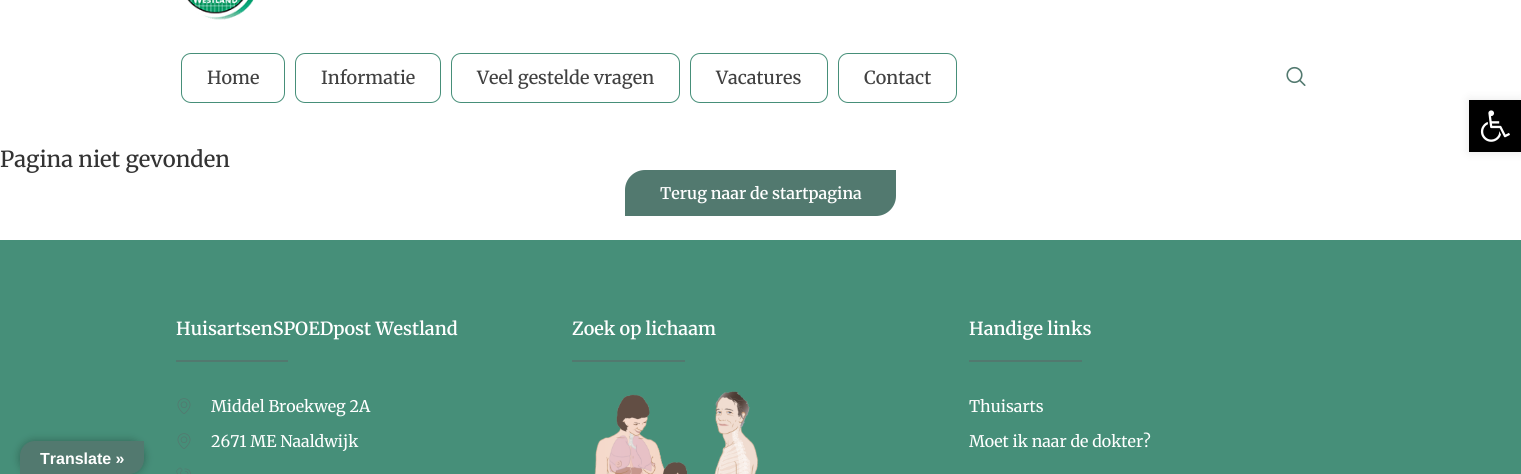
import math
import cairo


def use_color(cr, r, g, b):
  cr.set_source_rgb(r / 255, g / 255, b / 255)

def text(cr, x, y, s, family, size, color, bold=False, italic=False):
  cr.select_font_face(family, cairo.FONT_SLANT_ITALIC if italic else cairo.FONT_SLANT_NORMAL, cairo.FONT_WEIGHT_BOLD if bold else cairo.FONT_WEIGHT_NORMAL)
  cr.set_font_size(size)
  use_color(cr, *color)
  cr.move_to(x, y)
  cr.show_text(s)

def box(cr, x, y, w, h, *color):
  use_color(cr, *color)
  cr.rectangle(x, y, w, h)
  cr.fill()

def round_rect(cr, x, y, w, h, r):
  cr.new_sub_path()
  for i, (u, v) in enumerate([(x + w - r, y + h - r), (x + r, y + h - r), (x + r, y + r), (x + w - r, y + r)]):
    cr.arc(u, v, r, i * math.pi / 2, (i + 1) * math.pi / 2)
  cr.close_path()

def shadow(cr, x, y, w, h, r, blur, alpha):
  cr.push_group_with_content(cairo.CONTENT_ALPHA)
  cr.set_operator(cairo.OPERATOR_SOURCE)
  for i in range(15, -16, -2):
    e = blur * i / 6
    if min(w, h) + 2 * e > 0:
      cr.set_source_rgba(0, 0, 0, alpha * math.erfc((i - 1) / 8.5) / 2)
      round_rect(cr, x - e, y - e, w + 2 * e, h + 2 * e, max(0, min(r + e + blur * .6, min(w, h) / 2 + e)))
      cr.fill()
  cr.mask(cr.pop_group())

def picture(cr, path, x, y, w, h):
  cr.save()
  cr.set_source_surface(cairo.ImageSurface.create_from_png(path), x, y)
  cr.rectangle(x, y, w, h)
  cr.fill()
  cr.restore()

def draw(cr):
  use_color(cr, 255, 255, 255)
  cr.paint()
  picture(cr, "img_01.png", 187, 0, 67, 20)
  round_rect(cr, 181.5, 53.5, 103, 49, 9.5)
  use_color(cr, 70, 143, 121)
  cr.set_line_width(1)
  cr.stroke()
  round_rect(cr, 295.5, 53.5, 145, 49, 9.5)
  cr.stroke()
  round_rect(cr, 451.5, 53.5, 228, 49, 9.5)
  cr.stroke()
  round_rect(cr, 690.5, 53.5, 137, 49, 9.5)
  cr.stroke()
  round_rect(cr, 838.5, 53.5, 118, 49, 9.5)
  cr.stroke()
  picture(cr, "img_02.png", 1286, 66, 20, 20)
  use_color(cr, 0, 0, 0)
  shadow(cr, 1469, 100, 52, 52, 0, 5, 0.1)
  box(cr, 1469, 100, 52, 52, 0, 0, 0)
  picture(cr, "img_03.png", 1480, 110, 30, 32)
  use_color(cr, 82, 121, 111)
  cr.new_path()
  cr.move_to(645, 170)
  cr.line_to(896, 170)
  cr.line_to(896, 196)
  cr.curve_to(896, 207, 887, 216, 876, 216)
  cr.line_to(625, 216)
  cr.line_to(625, 190)
  cr.curve_to(625, 179, 634, 170, 645, 170)
  cr.close_path()
  cr.fill()
  box(cr, 0, 240, 1521, 234, 70, 143, 121)
  box(cr, 176, 360, 112, 2, 82, 121, 111)
  picture(cr, "img_04.png", 177, 398, 14, 16)
  picture(cr, "img_04.png", 177, 433, 14, 16)
  picture(cr, "img_05.png", 176, 467, 15, 7)
  box(cr, 572, 360, 113, 2, 82, 121, 111)
  picture(cr, "img_06.png", 594, 391, 165, 83)
  box(cr, 969, 360, 113, 2, 82, 121, 111)
  use_color(cr, 0, 0, 0)
  shadow(cr, 20, 441, 124, 33, 15, 4.5, 0.3)
  use_color(cr, 82, 121, 111)
  cr.new_path()
  cr.move_to(35, 441)
  cr.line_to(144, 441)
  cr.line_to(144, 459)
  cr.curve_to(144, 467.5, 137.5, 474, 129, 474)
  cr.line_to(20, 474)
  cr.line_to(20, 456)
  cr.curve_to(20, 447.5, 26.5, 441, 35, 441)
  cr.close_path()
  cr.fill()
  text(cr, 207, 84, "Home", "Merriweather Medium", 18, (65, 65, 65))
  text(cr, 321, 84, "Informatie", "Merriweather Medium", 18, (65, 65, 65))
  text(cr, 477, 84, "Veel gestelde vragen", "Merriweather Medium", 18, (65, 65, 65))
  text(cr, 716, 84, "Vacatures", "Merriweather Medium", 18, (65, 65, 65))
  text(cr, 864, 84, "Contact", "Merriweather Medium", 18, (65, 65, 65))
  text(cr, 0, 167, "Pagina niet gevonden", "Merriweather Medium", 22, (51, 51, 51))
  text(cr, 660, 199, "Terug naar de startpagina", "Merriweather SemiBold", 16, (255, 255, 255))
  text(cr, 176, 335, "HuisartsenSPOEDpost Westland", "Merriweather SemiBold", 18, (255, 255, 255))
  text(cr, 211, 412, "Middel Broekweg 2A", "Merriweather", 16, (255, 255, 255))
  text(cr, 211, 447, "2671 ME Naaldwijk", "Merriweather", 16, (255, 255, 255))
  text(cr, 572, 335, "Zoek op lichaam", "Merriweather SemiBold", 18, (255, 255, 255))
  text(cr, 969, 335, "Handige links", "Merriweather SemiBold", 18, (255, 255, 255))
  text(cr, 969, 412, "Thuisarts", "Merriweather", 16, (255, 255, 255))
  text(cr, 969, 447, "Moet ik naar de dokter?", "Merriweather", 16, (255, 255, 255))
  text(cr, 40, 464, "Translate »", "Liberation Sans", 16, (255, 255, 255), bold=True)


surface = cairo.ImageSurface(cairo.FORMAT_RGB24, 1521, 474)
cr = cairo.Context(surface)
options = cairo.FontOptions()
options.set_hint_metrics(cairo.HINT_METRICS_OFF)
options.set_hint_style(cairo.HINT_STYLE_NONE)
cr.set_font_options(options)
cr.set_miter_limit(4)
draw(cr)
surface.write_to_png("out.png")
